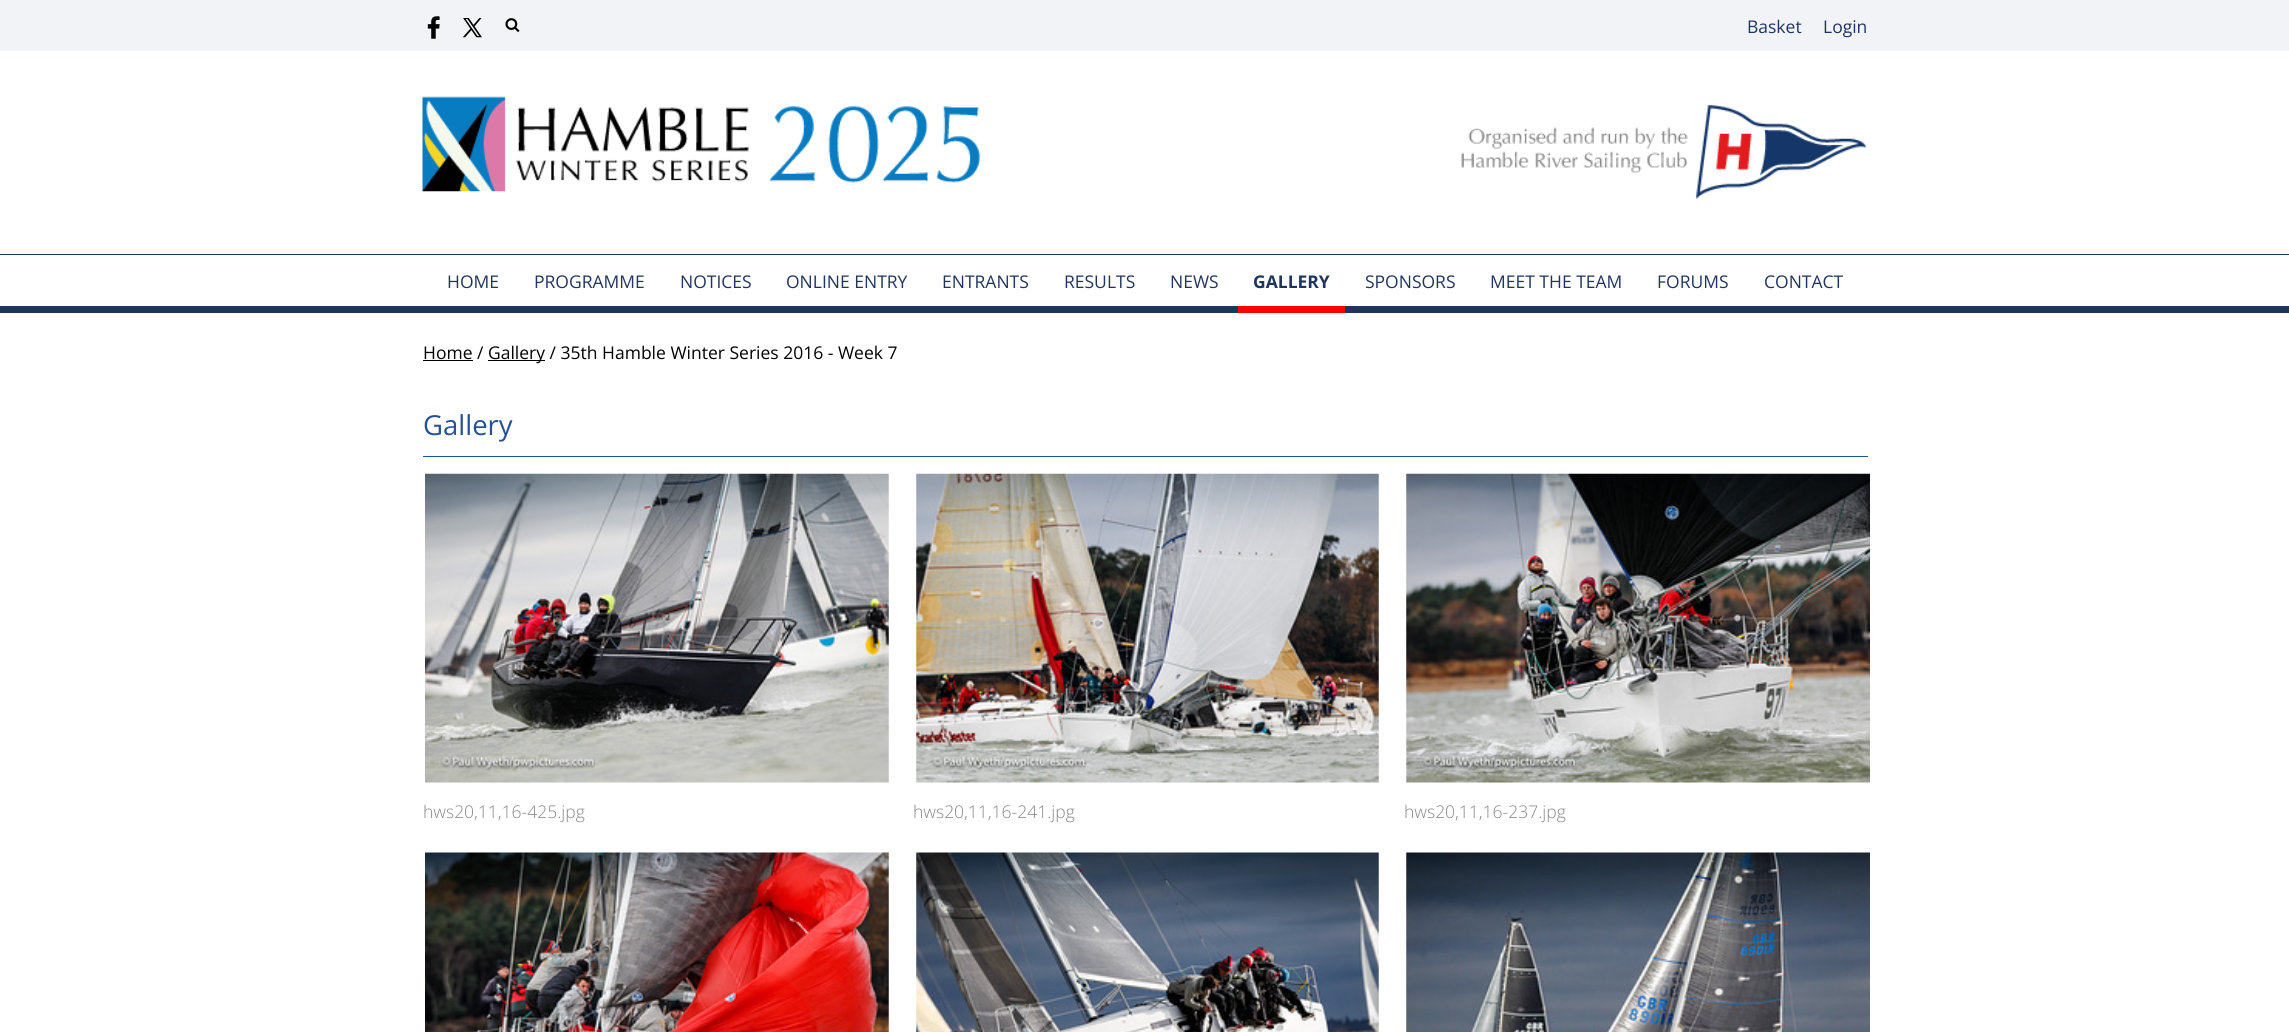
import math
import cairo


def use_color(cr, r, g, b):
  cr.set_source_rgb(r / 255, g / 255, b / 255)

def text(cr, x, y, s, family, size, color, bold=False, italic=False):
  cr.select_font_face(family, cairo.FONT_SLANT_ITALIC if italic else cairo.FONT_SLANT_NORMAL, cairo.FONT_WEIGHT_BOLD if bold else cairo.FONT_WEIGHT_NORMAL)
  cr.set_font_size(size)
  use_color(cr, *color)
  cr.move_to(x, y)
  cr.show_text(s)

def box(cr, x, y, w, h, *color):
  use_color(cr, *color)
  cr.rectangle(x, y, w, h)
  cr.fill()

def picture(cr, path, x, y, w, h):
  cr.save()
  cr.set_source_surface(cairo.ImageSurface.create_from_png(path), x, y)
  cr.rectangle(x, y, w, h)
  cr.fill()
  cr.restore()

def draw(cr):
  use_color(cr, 255, 255, 255)
  cr.paint()
  box(cr, 0, 0, 2289, 51, 242, 243, 246)
  picture(cr, "img_01.png", 427, 16, 13, 23)
  picture(cr, "img_02.png", 463, 18, 19, 20)
  picture(cr, "img_03.png", 505, 18, 15, 15)
  picture(cr, "img_04.png", 422, 96, 559, 96)
  picture(cr, "img_05.png", 1461, 104, 406, 95)
  box(cr, 0, 254, 2289, 59, 32, 53, 94)
  box(cr, 0, 255, 2289, 51, 255, 255, 255)
  box(cr, 1238, 306, 107, 7, 255, 0, 0)
  box(cr, 423, 360, 50, 1, 0, 0, 0)
  box(cr, 488, 360, 57, 1, 0, 0, 0)
  box(cr, 423, 456, 1445, 1, 37, 81, 149)
  picture(cr, "img_06.png", 425, 473, 464, 310)
  picture(cr, "img_07.png", 916, 473, 463, 310)
  picture(cr, "img_08.png", 1406, 473, 464, 310)
  picture(cr, "img_09.png", 425, 852, 464, 180)
  picture(cr, "img_10.png", 916, 852, 463, 180)
  picture(cr, "img_11.png", 1406, 852, 464, 180)
  text(cr, 1747, 33, "Basket", "Open Sans", 17.5, (32, 53, 94))
  text(cr, 1823, 33, "Login", "Open Sans", 17.5, (32, 53, 94))
  text(cr, 447, 288, "HOME", "Open Sans", 17.5, (32, 53, 94))
  text(cr, 534, 288, "PROGRAMME", "Open Sans", 17.5, (32, 53, 94))
  text(cr, 680, 288, "NOTICES", "Open Sans", 17.5, (32, 53, 94))
  text(cr, 786, 288, "ONLINE ENTRY", "Open Sans", 17.5, (32, 53, 94))
  text(cr, 942, 288, "ENTRANTS", "Open Sans", 17.5, (32, 53, 94))
  text(cr, 1064, 288, "RESULTS", "Open Sans", 17.5, (32, 53, 94))
  text(cr, 1170, 288, "NEWS", "Open Sans", 17.5, (32, 53, 94))
  text(cr, 1253, 288, "GALLERY", "Open Sans", 17.5, (32, 53, 94), bold=True)
  text(cr, 1365, 288, "SPONSORS", "Open Sans", 17.5, (32, 53, 94))
  text(cr, 1490, 288, "MEET THE TEAM", "Open Sans", 17.5, (32, 53, 94))
  text(cr, 1657, 288, "FORUMS", "Open Sans", 17.5, (32, 53, 94))
  text(cr, 1764, 288, "CONTACT", "Open Sans", 17.5, (32, 53, 94))
  text(cr, 423, 359, "Home /", "Open Sans", 17.5, (0, 0, 0))
  text(cr, 488, 359, "Gallery / 35th Hamble Winter Series 2016 - Week 7", "Open Sans", 17.5, (0, 0, 0))
  text(cr, 423, 435, "Gallery", "Open Sans", 27.5, (37, 81, 149))
  text(cr, 423, 818, "hws20,11,16-425.jpg", "Open Sans Light", 17.5, (136, 136, 136))
  text(cr, 913, 818, "hws20,11,16-241.jpg", "Open Sans Light", 17.5, (136, 136, 136))
  text(cr, 1404, 818, "hws20,11,16-237.jpg", "Open Sans Light", 17.5, (136, 136, 136))


surface = cairo.ImageSurface(cairo.FORMAT_RGB24, 2289, 1032)
cr = cairo.Context(surface)
options = cairo.FontOptions()
options.set_hint_metrics(cairo.HINT_METRICS_OFF)
options.set_hint_style(cairo.HINT_STYLE_NONE)
cr.set_font_options(options)
cr.set_miter_limit(4)
draw(cr)
surface.write_to_png("out.png")
